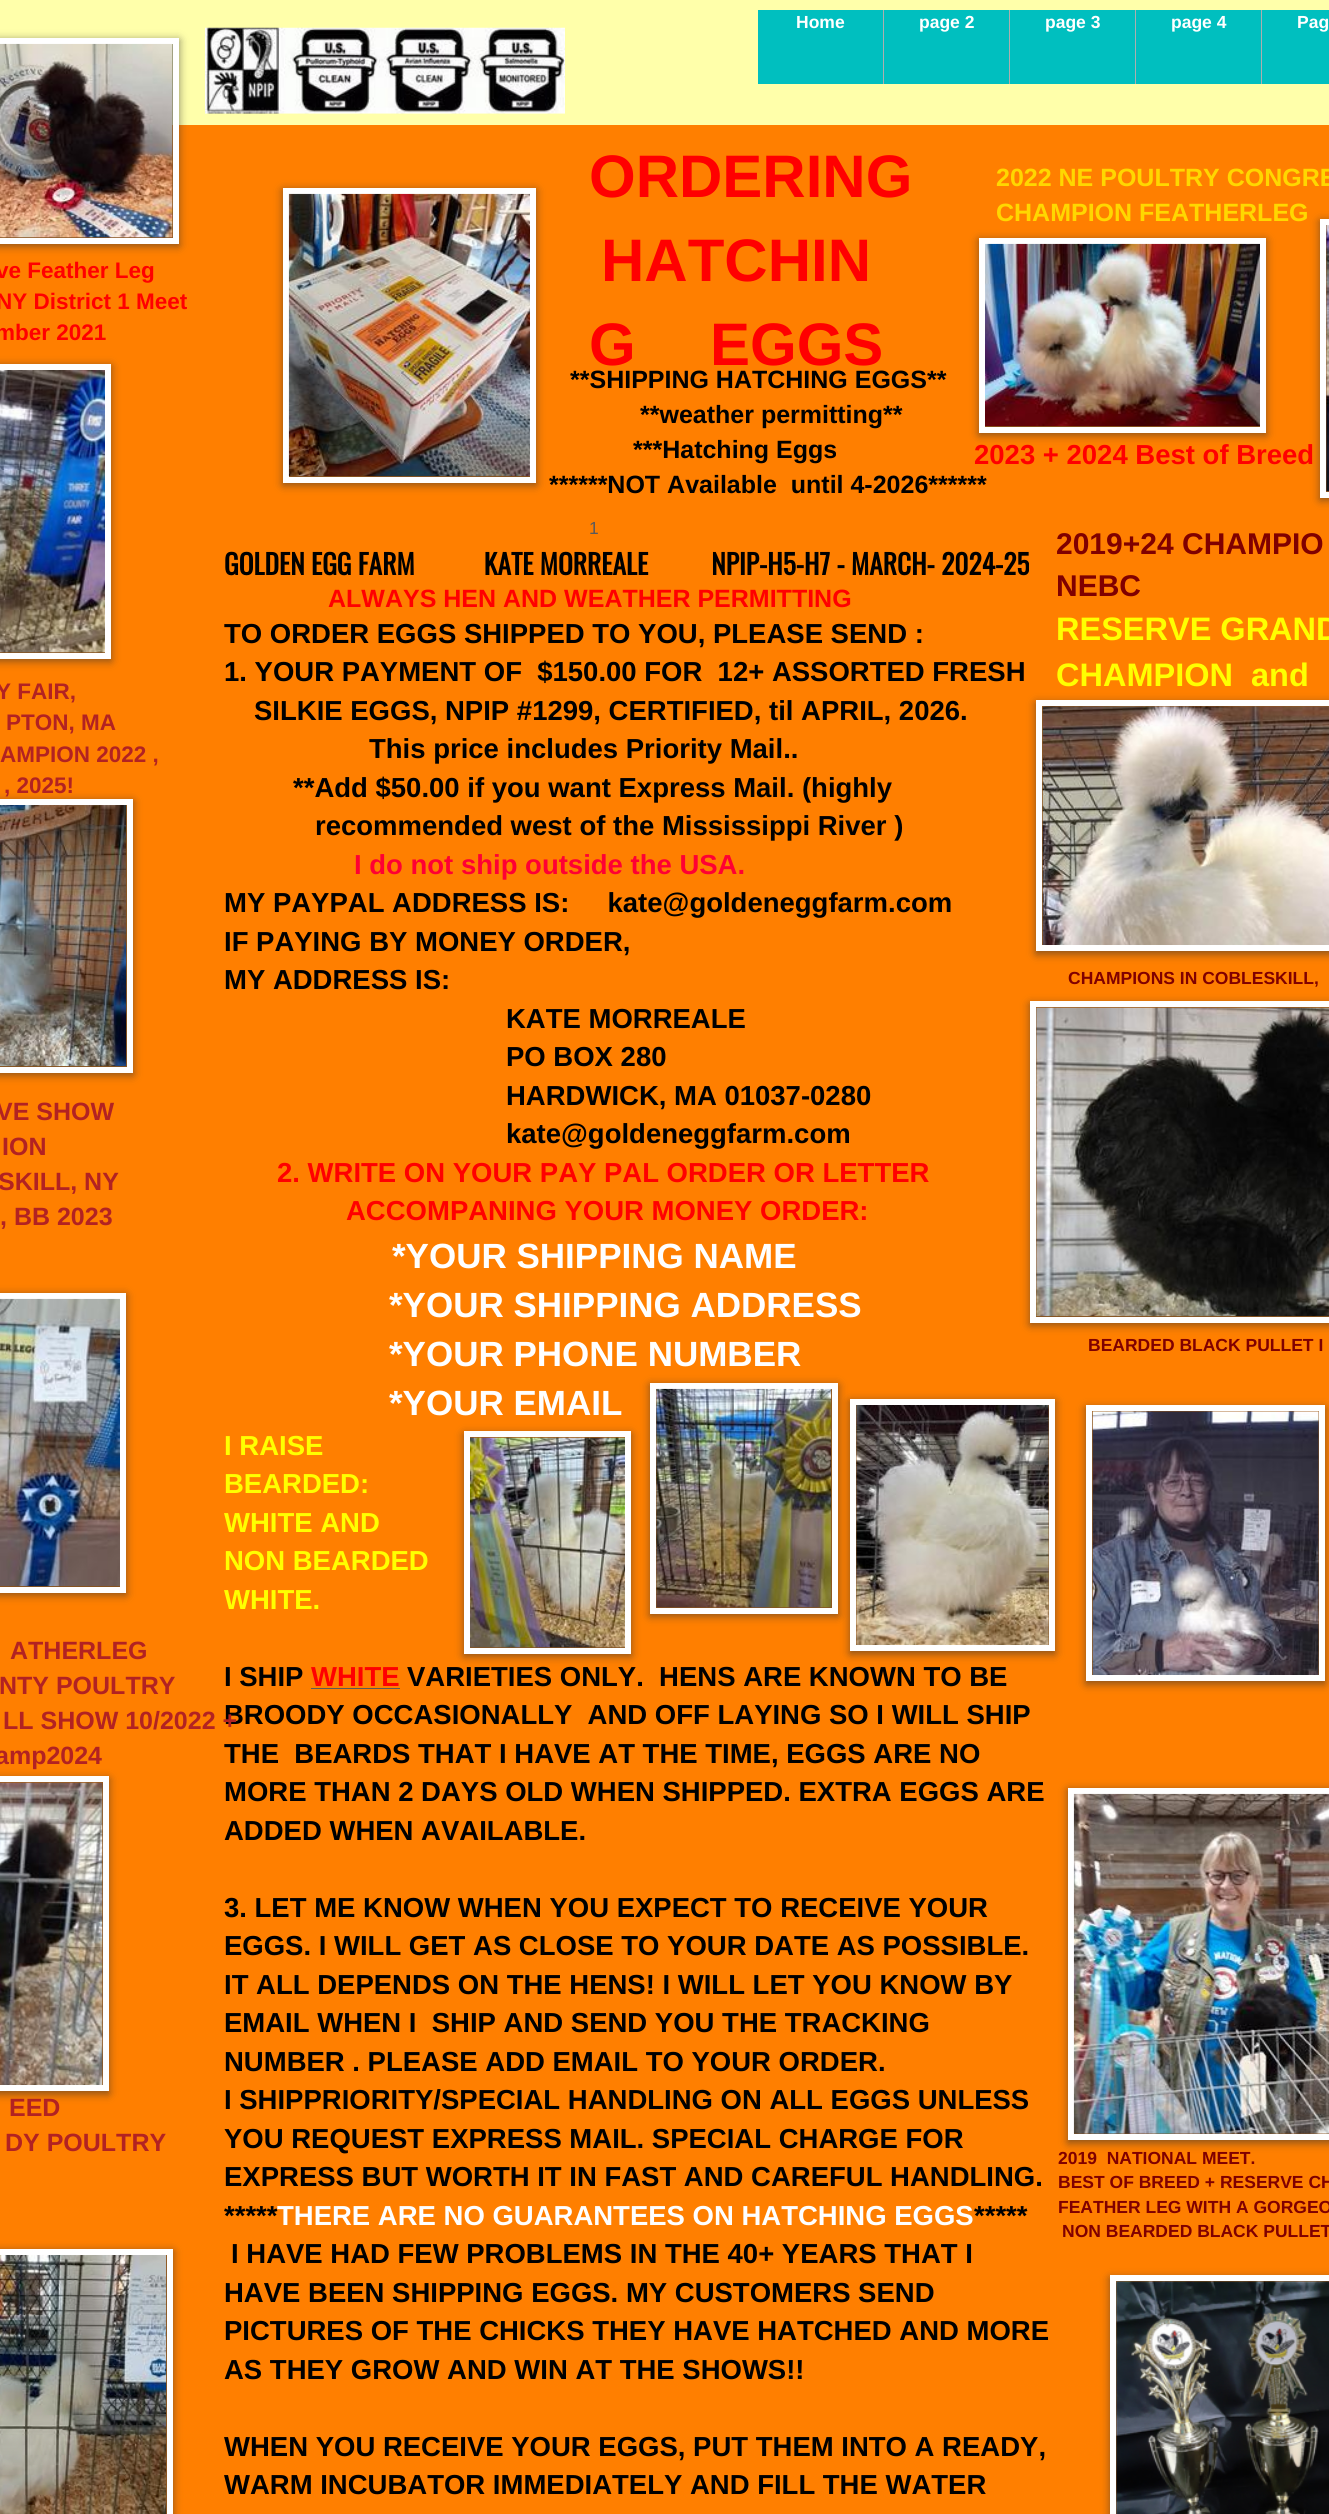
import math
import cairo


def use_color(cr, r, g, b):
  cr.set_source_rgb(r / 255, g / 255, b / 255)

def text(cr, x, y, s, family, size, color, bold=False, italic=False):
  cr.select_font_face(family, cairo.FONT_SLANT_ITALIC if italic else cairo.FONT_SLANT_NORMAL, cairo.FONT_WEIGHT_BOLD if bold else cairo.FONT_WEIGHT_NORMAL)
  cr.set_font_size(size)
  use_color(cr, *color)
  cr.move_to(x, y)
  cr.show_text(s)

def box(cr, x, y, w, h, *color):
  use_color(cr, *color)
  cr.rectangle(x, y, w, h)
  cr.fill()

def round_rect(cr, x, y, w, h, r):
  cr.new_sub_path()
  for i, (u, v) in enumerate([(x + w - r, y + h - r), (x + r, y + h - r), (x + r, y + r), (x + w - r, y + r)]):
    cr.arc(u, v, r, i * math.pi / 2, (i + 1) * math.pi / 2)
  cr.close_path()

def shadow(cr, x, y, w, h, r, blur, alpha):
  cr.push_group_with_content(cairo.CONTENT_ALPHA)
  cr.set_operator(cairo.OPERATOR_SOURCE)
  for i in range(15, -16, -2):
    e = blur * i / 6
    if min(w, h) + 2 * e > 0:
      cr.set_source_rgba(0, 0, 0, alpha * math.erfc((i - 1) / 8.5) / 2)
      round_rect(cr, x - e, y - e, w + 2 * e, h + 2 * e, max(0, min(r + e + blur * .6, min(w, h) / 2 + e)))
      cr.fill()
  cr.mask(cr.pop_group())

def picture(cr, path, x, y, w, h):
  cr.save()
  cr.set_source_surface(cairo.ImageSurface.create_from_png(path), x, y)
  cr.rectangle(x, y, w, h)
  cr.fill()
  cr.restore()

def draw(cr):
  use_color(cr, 255, 255, 170)
  cr.paint()
  box(cr, 0, 125, 1329, 2389, 255, 127, 0)
  use_color(cr, 50, 50, 50)
  shadow(cr, -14, 40, 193, 206, 0, 4.5, 0.6)
  cr.rectangle(-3, 41, 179, 200)
  use_color(cr, 255, 255, 255)
  cr.set_line_width(6)
  cr.stroke()
  picture(cr, "img_01.png", 0, 43, 173, 195)
  picture(cr, "img_02.png", 205, 27, 360, 87)
  box(cr, 758, 10, 125, 74, 0, 191, 191)
  box(cr, 883, 10, 1, 74, 174, 174, 174)
  box(cr, 884, 10, 125, 74, 0, 191, 191)
  box(cr, 1009, 10, 1, 74, 174, 174, 174)
  box(cr, 1010, 10, 125, 74, 0, 191, 191)
  box(cr, 1135, 10, 1, 74, 174, 174, 174)
  box(cr, 1136, 10, 193, 74, 0, 191, 191)
  box(cr, 1261, 10, 1, 74, 174, 174, 174)
  use_color(cr, 50, 50, 50)
  shadow(cr, 283, 190, 253, 295, 0, 4.5, 0.6)
  cr.rectangle(286, 191, 247, 289)
  use_color(cr, 255, 255, 255)
  cr.stroke()
  picture(cr, "img_03.png", 288, 193, 242, 284)
  use_color(cr, 50, 50, 50)
  shadow(cr, 979, 240, 287, 195, 0, 4.5, 0.6)
  cr.rectangle(982, 241, 281, 189)
  use_color(cr, 255, 255, 255)
  cr.stroke()
  picture(cr, "img_04.png", 985, 243, 275, 184)
  use_color(cr, 50, 50, 50)
  shadow(cr, 1320, 221, 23, 279, 0, 4.5, 0.6)
  cr.rectangle(1323, 222, 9, 273)
  use_color(cr, 255, 255, 255)
  cr.stroke()
  picture(cr, "img_05.png", 1326, 225, 3, 267)
  use_color(cr, 50, 50, 50)
  shadow(cr, -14, 366, 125, 295, 0, 4.5, 0.6)
  cr.rectangle(-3, 367, 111, 289)
  use_color(cr, 255, 255, 255)
  cr.stroke()
  picture(cr, "img_06.png", 0, 370, 105, 283)
  box(cr, 311, 1688, 89, 1, 90, 90, 92)
  use_color(cr, 50, 50, 50)
  shadow(cr, -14, 801, 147, 274, 0, 4.5, 0.6)
  cr.rectangle(-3, 802, 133, 268)
  use_color(cr, 255, 255, 255)
  cr.stroke()
  picture(cr, "img_07.png", 0, 805, 127, 262)
  use_color(cr, 50, 50, 50)
  shadow(cr, 1036, 703, 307, 251, 0, 4.5, 0.6)
  cr.rectangle(1039, 703, 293, 245)
  use_color(cr, 255, 255, 255)
  cr.stroke()
  picture(cr, "img_08.png", 1042, 706, 287, 239)
  use_color(cr, 50, 50, 50)
  shadow(cr, 1030, 1004, 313, 321, 0, 4.5, 0.6)
  cr.rectangle(1033, 1004, 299, 316)
  use_color(cr, 255, 255, 255)
  cr.stroke()
  picture(cr, "img_09.png", 1036, 1007, 293, 310)
  use_color(cr, 50, 50, 50)
  shadow(cr, -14, 1295, 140, 300, 0, 4.5, 0.6)
  cr.rectangle(-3, 1296, 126, 294)
  use_color(cr, 255, 255, 255)
  cr.stroke()
  picture(cr, "img_10.png", 0, 1298, 120, 289)
  use_color(cr, 50, 50, 50)
  shadow(cr, 464, 1434, 167, 222, 0, 4.5, 0.6)
  cr.rectangle(467, 1434, 161, 217)
  use_color(cr, 255, 255, 255)
  cr.stroke()
  picture(cr, "img_11.png", 470, 1437, 155, 211)
  use_color(cr, 50, 50, 50)
  shadow(cr, 850, 1401, 205, 253, 0, 4.5, 0.6)
  cr.rectangle(853, 1402, 199, 246)
  use_color(cr, 255, 255, 255)
  cr.stroke()
  use_color(cr, 50, 50, 50)
  shadow(cr, 650, 1385, 188, 231, 0, 4.5, 0.6)
  cr.rectangle(653, 1386, 182, 225)
  use_color(cr, 255, 255, 255)
  cr.stroke()
  picture(cr, "img_12.png", 656, 1388, 176, 220)
  picture(cr, "img_13.png", 856, 1405, 193, 240)
  use_color(cr, 50, 50, 50)
  shadow(cr, 1086, 1408, 239, 276, 0, 4.5, 0.6)
  cr.rectangle(1089, 1408, 233, 270)
  use_color(cr, 255, 255, 255)
  cr.stroke()
  picture(cr, "img_14.png", 1092, 1411, 227, 264)
  use_color(cr, 50, 50, 50)
  shadow(cr, -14, 1779, 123, 315, 0, 4.5, 0.6)
  cr.rectangle(-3, 1779, 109, 309)
  use_color(cr, 255, 255, 255)
  cr.stroke()
  picture(cr, "img_15.png", 0, 1782, 103, 303)
  use_color(cr, 50, 50, 50)
  shadow(cr, 1068, 1790, 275, 353, 0, 4.5, 0.6)
  cr.rectangle(1071, 1791, 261, 346)
  use_color(cr, 255, 255, 255)
  cr.stroke()
  picture(cr, "img_16.png", 1073, 1793, 256, 341)
  use_color(cr, 50, 50, 50)
  shadow(cr, -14, 2251, 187, 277, 0, 4.5, 0.6)
  cr.rectangle(-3, 2252, 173, 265)
  use_color(cr, 255, 255, 255)
  cr.stroke()
  picture(cr, "img_17.png", 0, 2255, 167, 259)
  use_color(cr, 50, 50, 50)
  shadow(cr, 1110, 2278, 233, 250, 0, 4.5, 0.6)
  cr.rectangle(1113, 2278, 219, 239)
  use_color(cr, 255, 255, 255)
  cr.stroke()
  picture(cr, "img_18.png", 1116, 2281, 213, 233)
  text(cr, 796, 28, "Home", "Liberation Sans", 17.5, (255, 255, 255), bold=True)
  text(cr, 919, 28, "page 2", "Liberation Sans", 17.5, (255, 255, 255), bold=True)
  text(cr, 1045, 28, "page 3", "Liberation Sans", 17.5, (255, 255, 255), bold=True)
  text(cr, 1171, 28, "page 4", "Liberation Sans", 17.5, (255, 255, 255), bold=True)
  text(cr, 1297, 28, "Pag", "Liberation Sans", 17.5, (255, 255, 255), bold=True)
  text(cr, 589, 197, "ORDERING", "Liberation Sans", 60, (255, 0, 0), bold=True)
  text(cr, 601, 281, "HATCHIN", "Liberation Sans", 60, (255, 0, 0), bold=True)
  text(cr, 589, 365, "G", "Liberation Sans", 60, (255, 0, 0), bold=True)
  text(cr, 710, 365, "EGGS", "Liberation Sans", 60, (255, 0, 0), bold=True)
  text(cr, 589, 534, "1", "Liberation Sans", 17.5, (90, 90, 92))
  text(cr, 996, 186, "2022 NE POULTRY CONGRE", "Liberation Sans", 25, (255, 215, 0), bold=True)
  text(cr, 996, 221, "CHAMPION FEATHERLEG", "Liberation Sans", 25, (255, 215, 0), bold=True)
  text(cr, -4, 278, "ve Feather Leg", "Liberation Sans", 22.5, (255, 0, 0), bold=True)
  text(cr, -4, 309, "NY District 1 Meet", "Liberation Sans", 22.5, (255, 0, 0), bold=True)
  text(cr, -5, 340, "mber 2021", "Liberation Sans", 22.5, (255, 0, 0), bold=True)
  text(cr, 570, 388, "**SHIPPING HATCHING EGGS**", "Liberation Sans", 25, (0, 0, 0), bold=True)
  text(cr, 640, 423, "**weather permitting**", "Liberation Sans", 25, (0, 0, 0), bold=True)
  text(cr, 633, 458, "***Hatching Eggs", "Liberation Sans", 25, (0, 0, 0), bold=True)
  text(cr, 549, 493, "******NOT Available  until 4-2026******", "Liberation Sans", 25, (0, 0, 0), bold=True)
  text(cr, 974, 464, "2023 + 2024 Best of Breed", "Liberation Sans", 27.5, (255, 0, 0), bold=True)
  text(cr, -4, 699, "Y FAIR,", "Liberation Sans", 22.5, (178, 34, 34), bold=True)
  text(cr, 6, 730, "PTON, MA", "Liberation Sans", 22.5, (178, 34, 34), bold=True)
  text(cr, 0, 762, "AMPION 2022 ,", "Liberation Sans", 22.5, (178, 34, 34), bold=True)
  text(cr, 4, 793, ", 2025!", "Liberation Sans", 22.5, (178, 34, 34), bold=True)
  text(cr, 224, 575, "GOLDEN EGG FARM           KATE MORREALE          NPIP-H5-H7 - MARCH- 2024-25", "Oswald", 27.5, (0, 0, 0), bold=True)
  text(cr, 328, 607, "ALWAYS HEN AND WEATHER PERMITTING", "Liberation Sans", 25, (255, 0, 0), bold=True)
  text(cr, 224, 643, "TO ORDER EGGS SHIPPED TO YOU, PLEASE SEND :", "Liberation Sans", 27.5, (0, 0, 0), bold=True)
  text(cr, 224, 681, "1. YOUR PAYMENT OF  $150.00 FOR  12+ ASSORTED FRESH", "Liberation Sans", 27.5, (0, 0, 0), bold=True)
  text(cr, 254, 720, "SILKIE EGGS, NPIP #1299, CERTIFIED, til APRIL, 2026.", "Liberation Sans", 27.5, (0, 0, 0), bold=True)
  text(cr, 369, 758, "This price includes Priority Mail..", "Liberation Sans", 27.5, (0, 0, 0), bold=True)
  text(cr, 293, 797, "**Add $50.00 if you want Express Mail. (highly", "Liberation Sans", 27.5, (0, 0, 0), bold=True)
  text(cr, 315, 835, "recommended west of the Mississippi River )", "Liberation Sans", 27.5, (0, 0, 0), bold=True)
  text(cr, 354, 874, "I do not ship outside the USA.", "Liberation Sans", 27.5, (255, 0, 51), bold=True)
  text(cr, 224, 912, "MY PAYPAL ADDRESS IS:     kate@goldeneggfarm.com", "Liberation Sans", 27.5, (0, 0, 0), bold=True)
  text(cr, 224, 951, "IF PAYING BY MONEY ORDER,", "Liberation Sans", 27.5, (0, 0, 0), bold=True)
  text(cr, 224, 989, "MY ADDRESS IS:", "Liberation Sans", 27.5, (0, 0, 0), bold=True)
  text(cr, 506, 1028, "KATE MORREALE", "Liberation Sans", 27.5, (0, 0, 0), bold=True)
  text(cr, 506, 1066, "PO BOX 280", "Liberation Sans", 27.5, (0, 0, 0), bold=True)
  text(cr, 506, 1105, "HARDWICK, MA 01037-0280", "Liberation Sans", 27.5, (0, 0, 0), bold=True)
  text(cr, 506, 1143, "kate@goldeneggfarm.com", "Liberation Sans", 27.5, (0, 0, 0), bold=True)
  text(cr, 277, 1182, "2. WRITE ON YOUR PAY PAL ORDER OR LETTER", "Liberation Sans", 27.5, (255, 0, 0), bold=True)
  text(cr, 346, 1220, "ACCOMPANING YOUR MONEY ORDER:", "Liberation Sans", 27.5, (255, 0, 0), bold=True)
  text(cr, 392, 1268, "*YOUR SHIPPING NAME", "Liberation Sans", 35, (255, 255, 255), bold=True)
  text(cr, 389, 1317, "*YOUR SHIPPING ADDRESS", "Liberation Sans", 35, (255, 255, 255), bold=True)
  text(cr, 389, 1366, "*YOUR PHONE NUMBER", "Liberation Sans", 35, (255, 255, 255), bold=True)
  text(cr, 389, 1415, "*YOUR EMAIL", "Liberation Sans", 35, (255, 255, 255), bold=True)
  text(cr, 224, 1455, "I RAISE", "Liberation Sans", 27.5, (255, 255, 0), bold=True)
  text(cr, 224, 1493, "BEARDED:", "Liberation Sans", 27.5, (255, 255, 0), bold=True)
  text(cr, 224, 1532, "WHITE AND", "Liberation Sans", 27.5, (255, 255, 0), bold=True)
  text(cr, 224, 1570, "NON BEARDED", "Liberation Sans", 27.5, (255, 255, 0), bold=True)
  text(cr, 224, 1609, "WHITE.", "Liberation Sans", 27.5, (255, 255, 0), bold=True)
  text(cr, 224, 1686, "I SHIP", "Liberation Sans", 27.5, (0, 0, 0), bold=True)
  text(cr, 311, 1686, "WHITE", "Liberation Sans", 27.5, (255, 0, 0), bold=True)
  text(cr, 407, 1686, "VARIETIES ONLY.  HENS ARE KNOWN TO BE", "Liberation Sans", 27.5, (0, 0, 0), bold=True)
  text(cr, 224, 1724, "BROODY OCCASIONALLY  AND OFF LAYING SO I WILL SHIP", "Liberation Sans", 27.5, (0, 0, 0), bold=True)
  text(cr, 224, 1763, "THE  BEARDS THAT I HAVE AT THE TIME, EGGS ARE NO", "Liberation Sans", 27.5, (0, 0, 0), bold=True)
  text(cr, 224, 1801, "MORE THAN 2 DAYS OLD WHEN SHIPPED. EXTRA EGGS ARE", "Liberation Sans", 27.5, (0, 0, 0), bold=True)
  text(cr, 224, 1840, "ADDED WHEN AVAILABLE.", "Liberation Sans", 27.5, (0, 0, 0), bold=True)
  text(cr, 224, 1917, "3. LET ME KNOW WHEN YOU EXPECT TO RECEIVE YOUR", "Liberation Sans", 27.5, (0, 0, 0), bold=True)
  text(cr, 224, 1955, "EGGS. I WILL GET AS CLOSE TO YOUR DATE AS POSSIBLE.", "Liberation Sans", 27.5, (0, 0, 0), bold=True)
  text(cr, 224, 1994, "IT ALL DEPENDS ON THE HENS! I WILL LET YOU KNOW BY", "Liberation Sans", 27.5, (0, 0, 0), bold=True)
  text(cr, 224, 2032, "EMAIL WHEN I  SHIP AND SEND YOU THE TRACKING", "Liberation Sans", 27.5, (0, 0, 0), bold=True)
  text(cr, 224, 2071, "NUMBER . PLEASE ADD EMAIL TO YOUR ORDER.", "Liberation Sans", 27.5, (0, 0, 0), bold=True)
  text(cr, 224, 2109, "I SHIPPRIORITY/SPECIAL HANDLING ON ALL EGGS UNLESS", "Liberation Sans", 27.5, (0, 0, 0), bold=True)
  text(cr, 224, 2148, "YOU REQUEST EXPRESS MAIL. SPECIAL CHARGE FOR", "Liberation Sans", 27.5, (0, 0, 0), bold=True)
  text(cr, 224, 2186, "EXPRESS BUT WORTH IT IN FAST AND CAREFUL HANDLING.", "Liberation Sans", 27.5, (0, 0, 0), bold=True)
  text(cr, 224, 2225, "*****", "Liberation Sans", 27.5, (0, 0, 0), bold=True)
  text(cr, 277, 2225, "THERE ARE NO GUARANTEES ON HATCHING EGGS", "Liberation Sans", 27.5, (255, 255, 255), bold=True)
  text(cr, 974, 2225, "*****", "Liberation Sans", 27.5, (0, 0, 0), bold=True)
  text(cr, 231, 2263, "I HAVE HAD FEW PROBLEMS IN THE 40+ YEARS THAT I", "Liberation Sans", 27.5, (0, 0, 0), bold=True)
  text(cr, 224, 2302, "HAVE BEEN SHIPPING EGGS. MY CUSTOMERS SEND", "Liberation Sans", 27.5, (0, 0, 0), bold=True)
  text(cr, 224, 2340, "PICTURES OF THE CHICKS THEY HAVE HATCHED AND MORE", "Liberation Sans", 27.5, (0, 0, 0), bold=True)
  text(cr, 224, 2379, "AS THEY GROW AND WIN AT THE SHOWS!!", "Liberation Sans", 27.5, (0, 0, 0), bold=True)
  text(cr, 224, 2456, "WHEN YOU RECEIVE YOUR EGGS, PUT THEM INTO A READY,", "Liberation Sans", 27.5, (0, 0, 0), bold=True)
  text(cr, 224, 2494, "WARM INCUBATOR IMMEDIATELY AND FILL THE WATER", "Liberation Sans", 27.5, (0, 0, 0), bold=True)
  text(cr, 1056, 554, "2019+24 CHAMPIO", "Liberation Sans", 30, (128, 0, 0), bold=True)
  text(cr, 1056, 596, "NEBC", "Liberation Sans", 30, (128, 0, 0), bold=True)
  text(cr, 1056, 640, "RESERVE GRAND", "Liberation Sans", 32.5, (255, 255, 0), bold=True)
  text(cr, 1056, 686, "CHAMPION  and", "Liberation Sans", 32.5, (255, 255, 0), bold=True)
  text(cr, 1068, 984, "CHAMPIONS IN COBLESKILL,", "Liberation Sans", 17.5, (128, 0, 0), bold=True)
  text(cr, -4, 1120, "VE SHOW", "Liberation Sans", 25, (178, 34, 34), bold=True)
  text(cr, 2, 1155, "ION", "Liberation Sans", 25, (178, 34, 34), bold=True)
  text(cr, -2, 1190, "SKILL, NY", "Liberation Sans", 25, (178, 34, 34), bold=True)
  text(cr, 0, 1225, ", BB 2023", "Liberation Sans", 25, (178, 34, 34), bold=True)
  text(cr, 1088, 1351, "BEARDED BLACK PULLET I", "Liberation Sans", 17.5, (128, 0, 0), bold=True)
  text(cr, 10, 1659, "ATHERLEG", "Liberation Sans", 25, (178, 34, 34), bold=True)
  text(cr, -1, 1694, "NTY POULTRY", "Liberation Sans", 25, (178, 34, 34), bold=True)
  text(cr, 3, 1729, "LL SHOW 10/2022 +", "Liberation Sans", 25, (178, 34, 34), bold=True)
  text(cr, -5, 1764, "amp2024", "Liberation Sans", 25, (178, 34, 34), bold=True)
  text(cr, 9, 2116, "EED", "Liberation Sans", 25, (178, 34, 34), bold=True)
  text(cr, 5, 2151, "DY POULTRY", "Liberation Sans", 25, (178, 34, 34), bold=True)
  text(cr, 1058, 2164, "2019  NATIONAL MEET.", "Liberation Sans", 17.5, (128, 0, 0), bold=True)
  text(cr, 1058, 2188, "BEST OF BREED + RESERVE CH", "Liberation Sans", 17.5, (128, 0, 0), bold=True)
  text(cr, 1058, 2213, "FEATHER LEG WITH A GORGEO", "Liberation Sans", 17.5, (128, 0, 0), bold=True)
  text(cr, 1062, 2237, "NON BEARDED BLACK PULLET", "Liberation Sans", 17.5, (128, 0, 0), bold=True)


surface = cairo.ImageSurface(cairo.FORMAT_RGB24, 1329, 2514)
cr = cairo.Context(surface)
options = cairo.FontOptions()
options.set_hint_metrics(cairo.HINT_METRICS_OFF)
options.set_hint_style(cairo.HINT_STYLE_NONE)
cr.set_font_options(options)
cr.set_miter_limit(4)
draw(cr)
surface.write_to_png("out.png")
